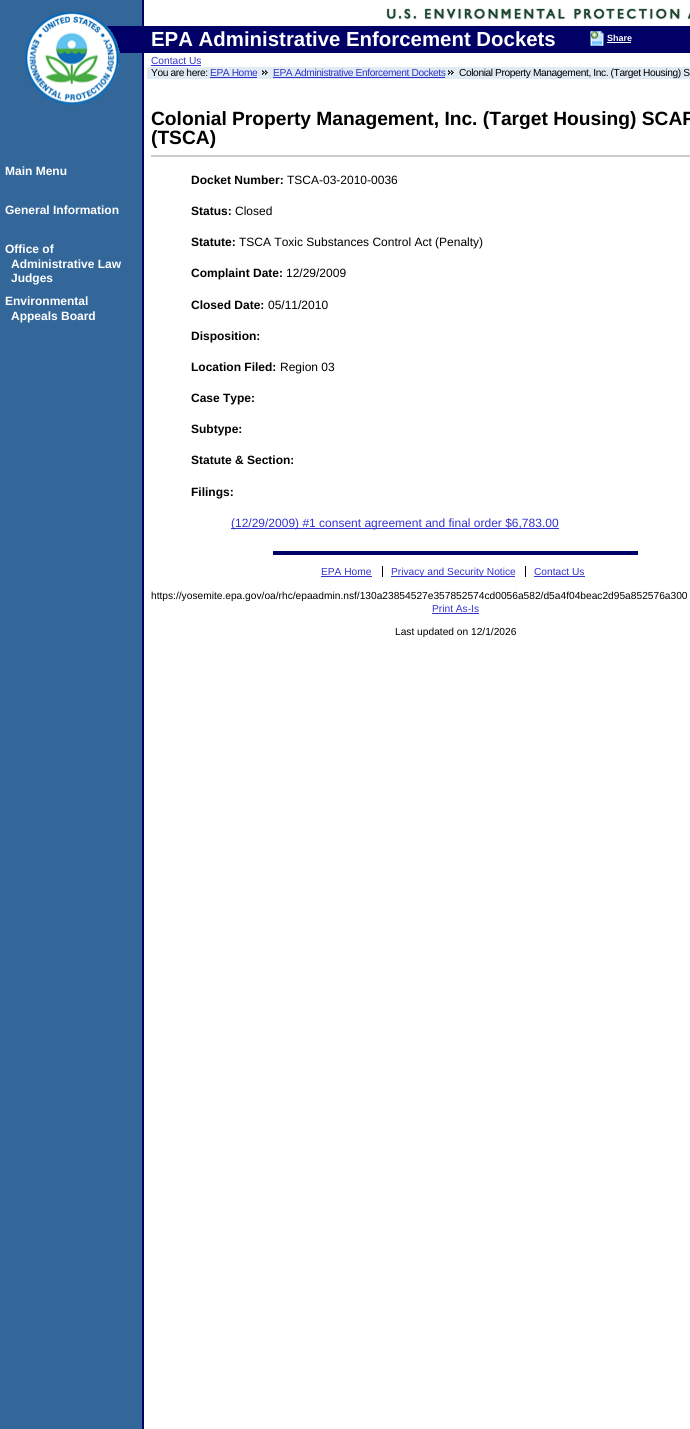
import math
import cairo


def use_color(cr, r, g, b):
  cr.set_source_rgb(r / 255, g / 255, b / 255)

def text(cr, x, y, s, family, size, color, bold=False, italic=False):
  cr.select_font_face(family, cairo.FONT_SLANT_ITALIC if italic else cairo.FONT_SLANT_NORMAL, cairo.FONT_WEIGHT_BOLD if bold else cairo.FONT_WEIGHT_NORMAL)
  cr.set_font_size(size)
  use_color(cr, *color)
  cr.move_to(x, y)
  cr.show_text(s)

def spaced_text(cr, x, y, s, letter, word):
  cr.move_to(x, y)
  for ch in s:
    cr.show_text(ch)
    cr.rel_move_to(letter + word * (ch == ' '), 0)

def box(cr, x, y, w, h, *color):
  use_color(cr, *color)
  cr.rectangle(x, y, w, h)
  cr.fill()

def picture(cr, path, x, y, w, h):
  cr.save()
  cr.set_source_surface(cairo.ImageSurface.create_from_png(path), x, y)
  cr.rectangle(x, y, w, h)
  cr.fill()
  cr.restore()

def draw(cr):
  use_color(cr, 255, 255, 255)
  cr.paint()
  picture(cr, "img_01.png", 0, 0, 144, 1429)
  picture(cr, "img_02.png", 386, 8, 304, 15)
  box(cr, 107, 26, 583, 27, 0, 0, 102)
  picture(cr, "img_03.png", 25, 12, 95, 93)
  box(cr, 151, 65, 50, 1, 51, 51, 204)
  box(cr, 147, 67, 543, 12, 225, 235, 244)
  box(cr, 210, 77, 47, 1, 51, 51, 204)
  picture(cr, "img_04.png", 262, 70, 6, 5)
  box(cr, 273, 77, 172, 1, 51, 51, 204)
  picture(cr, "img_04.png", 448, 70, 6, 5)
  picture(cr, "img_05.png", 590, 31, 14, 15)
  box(cr, 607, 42, 24, 1, 255, 255, 255)
  box(cr, 273, 551, 365, 4, 0, 0, 102)
  box(cr, 382, 566, 1, 11, 0, 0, 0)
  box(cr, 321, 576, 51, 1, 51, 51, 204)
  box(cr, 525, 566, 1, 11, 0, 0, 0)
  box(cr, 391, 576, 124, 1, 51, 51, 204)
  box(cr, 534, 576, 51, 1, 51, 51, 204)
  box(cr, 432, 613, 47, 1, 51, 51, 204)
  box(cr, 151, 155, 539, 2, 204, 204, 204)
  box(cr, 231, 528, 328, 1, 51, 51, 204)
  text(cr, 151, 46, "EPA Administrative Enforcement Dockets", "Liberation Sans", 20.4, (255, 255, 255), bold=True)
  text(cr, 151, 64, "Contact Us", "Liberation Sans", 10.2, (51, 51, 204))
  use_color(cr, 0, 0, 0)
  spaced_text(cr, 151, 76, "You are here:", -0.4, 0)
  use_color(cr, 51, 51, 204)
  spaced_text(cr, 210, 76, "EPA Home", -0.4, 0)
  spaced_text(cr, 273, 76, "EPA Administrative Enforcement Dockets", -0.4, 0)
  use_color(cr, 0, 0, 0)
  spaced_text(cr, 459, 76, "Colonial Property Management, Inc. (Target Housing) S", -0.4, 0)
  text(cr, 607, 41, "Share", "Liberation Sans", 9, (255, 255, 255), bold=True)
  text(cr, 321, 575, "EPA Home", "Liberation Sans", 10.2, (51, 51, 204))
  text(cr, 391, 575, "Privacy and Security Notice", "Liberation Sans", 10.2, (51, 51, 204))
  text(cr, 534, 575, "Contact Us", "Liberation Sans", 10.2, (51, 51, 204))
  text(cr, 151, 599, "https://yosemite.epa.gov/oa/rhc/epaadmin.nsf/130a23854527e357852574cd0056a582/d5a4f04beac2d95a852576a300", "Liberation Sans", 10.2, (0, 0, 0))
  text(cr, 432, 612, "Print As-Is", "Liberation Sans", 10.2, (51, 51, 204))
  text(cr, 395, 635, "Last updated on 12/1/2026", "Liberation Sans", 10.2, (0, 0, 0))
  text(cr, 5, 175, "Main Menu", "Liberation Sans", 12, (255, 255, 255), bold=True)
  text(cr, 5, 214, "General Information", "Liberation Sans", 12, (255, 255, 255), bold=True)
  text(cr, 5, 253, "Office of", "Liberation Sans", 12, (255, 255, 255), bold=True)
  text(cr, 11, 268, "Administrative Law", "Liberation Sans", 12, (255, 255, 255), bold=True)
  text(cr, 11, 282, "Judges", "Liberation Sans", 12, (255, 255, 255), bold=True)
  text(cr, 5, 305, "Environmental", "Liberation Sans", 12, (255, 255, 255), bold=True)
  text(cr, 11, 320, "Appeals Board", "Liberation Sans", 12, (255, 255, 255), bold=True)
  text(cr, 151, 125, "Colonial Property Management, Inc. (Target Housing) SCAF", "Liberation Sans", 19.2, (0, 0, 0), bold=True)
  text(cr, 151, 144, "(TSCA)", "Liberation Sans", 19.2, (0, 0, 0), bold=True)
  text(cr, 191, 184, "Docket Number:", "Liberation Sans", 12, (0, 0, 0), bold=True)
  text(cr, 287, 184, "TSCA-03-2010-0036", "Liberation Sans", 12, (0, 0, 0))
  text(cr, 191, 215, "Status:", "Liberation Sans", 12, (0, 0, 0), bold=True)
  text(cr, 235, 215, "Closed", "Liberation Sans", 12, (0, 0, 0))
  text(cr, 191, 246, "Statute:", "Liberation Sans", 12, (0, 0, 0), bold=True)
  text(cr, 239, 246, "TSCA Toxic Substances Control Act (Penalty)", "Liberation Sans", 12, (0, 0, 0))
  text(cr, 191, 277, "Complaint Date:", "Liberation Sans", 12, (0, 0, 0), bold=True)
  text(cr, 286, 277, "12/29/2009", "Liberation Sans", 12, (0, 0, 0))
  text(cr, 191, 309, "Closed Date:", "Liberation Sans", 12, (0, 0, 0), bold=True)
  text(cr, 268, 309, "05/11/2010", "Liberation Sans", 12, (0, 0, 0))
  text(cr, 191, 340, "Disposition:", "Liberation Sans", 12, (0, 0, 0), bold=True)
  text(cr, 191, 371, "Location Filed:", "Liberation Sans", 12, (0, 0, 0), bold=True)
  text(cr, 280, 371, "Region 03", "Liberation Sans", 12, (0, 0, 0))
  text(cr, 191, 402, "Case Type:", "Liberation Sans", 12, (0, 0, 0), bold=True)
  text(cr, 191, 433, "Subtype:", "Liberation Sans", 12, (0, 0, 0), bold=True)
  text(cr, 191, 464, "Statute & Section:", "Liberation Sans", 12, (0, 0, 0), bold=True)
  text(cr, 191, 496, "Filings:", "Liberation Sans", 12, (0, 0, 0), bold=True)
  text(cr, 231, 527, "(12/29/2009) #1 consent agreement and final order $6,783.00", "Liberation Sans", 12, (51, 51, 204))


surface = cairo.ImageSurface(cairo.FORMAT_RGB24, 690, 1429)
cr = cairo.Context(surface)
options = cairo.FontOptions()
options.set_hint_metrics(cairo.HINT_METRICS_OFF)
options.set_hint_style(cairo.HINT_STYLE_NONE)
cr.set_font_options(options)
cr.set_miter_limit(4)
draw(cr)
surface.write_to_png("out.png")
